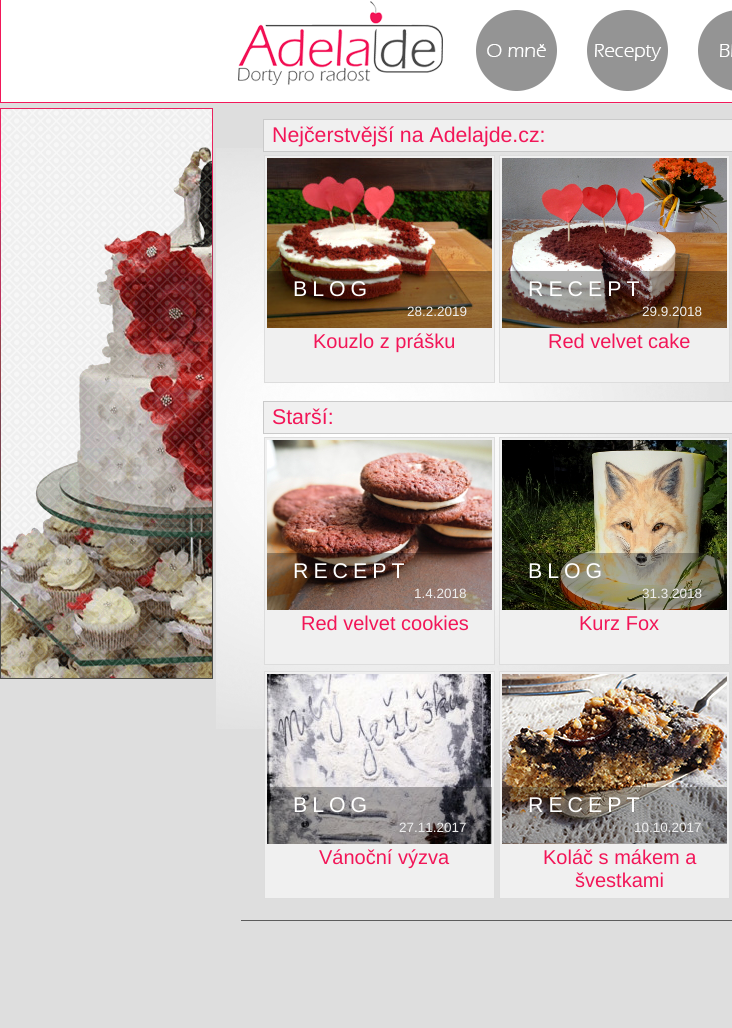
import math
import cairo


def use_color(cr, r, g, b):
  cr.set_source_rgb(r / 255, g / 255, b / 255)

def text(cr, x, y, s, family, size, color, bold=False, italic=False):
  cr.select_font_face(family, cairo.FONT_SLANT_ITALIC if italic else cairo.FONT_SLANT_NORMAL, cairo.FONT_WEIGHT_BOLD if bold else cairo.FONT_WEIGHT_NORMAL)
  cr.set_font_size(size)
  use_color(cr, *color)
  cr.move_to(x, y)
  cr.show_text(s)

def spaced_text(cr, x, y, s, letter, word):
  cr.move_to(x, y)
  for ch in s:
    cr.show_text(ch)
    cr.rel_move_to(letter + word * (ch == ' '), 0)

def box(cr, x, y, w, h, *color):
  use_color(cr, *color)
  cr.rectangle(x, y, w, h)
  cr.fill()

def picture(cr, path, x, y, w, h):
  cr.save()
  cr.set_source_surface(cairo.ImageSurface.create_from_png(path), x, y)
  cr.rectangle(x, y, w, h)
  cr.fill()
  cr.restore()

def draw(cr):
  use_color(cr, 222, 222, 222)
  cr.paint()
  picture(cr, "img_01.png", 0, 0, 216, 104)
  box(cr, 216, 0, 245, 1, 255, 255, 255)
  picture(cr, "img_02.png", 216, 1, 245, 103)
  box(cr, 461, 0, 271, 10, 255, 255, 255)
  picture(cr, "img_03.png", 461, 10, 111, 94)
  picture(cr, "img_04.png", 572, 10, 111, 94)
  picture(cr, "img_05.png", 683, 10, 49, 94)
  picture(cr, "img_06.png", 0, 108, 213, 571)
  picture(cr, "img_07.png", 216, 148, 516, 581)
  use_color(cr, 240, 240, 240)
  cr.rectangle(263.5, 119.5, 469, 32)
  cr.fill_preserve()
  use_color(cr, 202, 202, 202)
  cr.set_line_width(1)
  cr.stroke()
  use_color(cr, 240, 240, 240)
  cr.rectangle(264.5, 155.5, 230, 227)
  cr.fill_preserve()
  use_color(cr, 221, 221, 221)
  cr.stroke()
  picture(cr, "img_08.png", 267, 158, 225, 170)
  cr.set_source_rgba(0, 0, 0, 0.3)
  cr.rectangle(267, 271, 225, 57)
  cr.fill()
  use_color(cr, 240, 240, 240)
  cr.rectangle(499.5, 155.5, 230, 227)
  cr.fill_preserve()
  use_color(cr, 221, 221, 221)
  cr.stroke()
  picture(cr, "img_09.png", 502, 158, 225, 170)
  cr.set_source_rgba(0, 0, 0, 0.3)
  cr.rectangle(502, 271, 225, 57)
  cr.fill()
  use_color(cr, 240, 240, 240)
  cr.rectangle(263.5, 401.5, 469, 32)
  cr.fill_preserve()
  use_color(cr, 202, 202, 202)
  cr.stroke()
  use_color(cr, 240, 240, 240)
  cr.rectangle(264.5, 437.5, 230, 227)
  cr.fill_preserve()
  use_color(cr, 221, 221, 221)
  cr.stroke()
  picture(cr, "img_10.png", 267, 440, 225, 170)
  cr.set_source_rgba(0, 0, 0, 0.3)
  cr.rectangle(267, 553, 225, 57)
  cr.fill()
  use_color(cr, 240, 240, 240)
  cr.rectangle(499.5, 437.5, 230, 227)
  cr.fill_preserve()
  use_color(cr, 221, 221, 221)
  cr.stroke()
  picture(cr, "img_11.png", 502, 440, 225, 170)
  cr.set_source_rgba(0, 0, 0, 0.3)
  cr.rectangle(502, 553, 225, 57)
  cr.fill()
  use_color(cr, 240, 240, 240)
  cr.rectangle(264.5, 671.5, 230, 227)
  cr.fill_preserve()
  use_color(cr, 221, 221, 221)
  cr.stroke()
  picture(cr, "img_12.png", 267, 674, 225, 170)
  cr.set_source_rgba(0, 0, 0, 0.3)
  cr.rectangle(267, 787, 225, 57)
  cr.fill()
  use_color(cr, 240, 240, 240)
  cr.rectangle(499.5, 671.5, 230, 227)
  cr.fill_preserve()
  use_color(cr, 221, 221, 221)
  cr.stroke()
  picture(cr, "img_13.png", 502, 674, 225, 170)
  cr.set_source_rgba(0, 0, 0, 0.3)
  cr.rectangle(502, 787, 225, 57)
  cr.fill()
  box(cr, 241, 920, 491, 1, 92, 92, 92)
  text(cr, 272, 142, "Nejčerstvější na Adelajde.cz:", "Liberation Sans", 21.3, (242, 22, 88))
  use_color(cr, 255, 255, 255)
  spaced_text(cr, 293, 296, "BLOG", 5, 0)
  text(cr, 407, 316, "28.2.2019", "Liberation Sans", 13.5, (238, 238, 238))
  text(cr, 313, 348, "Kouzlo z prášku", "Liberation Sans", 20, (242, 22, 88))
  cr.set_font_size(21.3)
  use_color(cr, 255, 255, 255)
  spaced_text(cr, 528, 296, "RECEPT", 5, 0)
  text(cr, 642, 316, "29.9.2018", "Liberation Sans", 13.5, (238, 238, 238))
  text(cr, 548, 348, "Red velvet cake", "Liberation Sans", 20, (242, 22, 88))
  text(cr, 272, 424, "Starší:", "Liberation Sans", 21.3, (242, 22, 88))
  use_color(cr, 255, 255, 255)
  spaced_text(cr, 293, 578, "RECEPT", 5, 0)
  text(cr, 414, 598, "1.4.2018", "Liberation Sans", 13.5, (238, 238, 238))
  text(cr, 301, 630, "Red velvet cookies", "Liberation Sans", 20, (242, 22, 88))
  cr.set_font_size(21.3)
  use_color(cr, 255, 255, 255)
  spaced_text(cr, 528, 578, "BLOG", 5, 0)
  text(cr, 642, 598, "31.3.2018", "Liberation Sans", 13.5, (238, 238, 238))
  text(cr, 579, 630, "Kurz Fox", "Liberation Sans", 20, (242, 22, 88))
  cr.set_font_size(21.3)
  use_color(cr, 255, 255, 255)
  spaced_text(cr, 293, 812, "BLOG", 5, 0)
  text(cr, 399, 832, "27.11.2017", "Liberation Sans", 13.5, (238, 238, 238))
  text(cr, 319, 864, "Vánoční výzva", "Liberation Sans", 20, (242, 22, 88))
  cr.set_font_size(21.3)
  use_color(cr, 255, 255, 255)
  spaced_text(cr, 528, 812, "RECEPT", 5, 0)
  text(cr, 634, 832, "10.10.2017", "Liberation Sans", 13.5, (238, 238, 238))
  text(cr, 543, 864, "Koláč s mákem a", "Liberation Sans", 20, (242, 22, 88))
  text(cr, 575, 887, "švestkami", "Liberation Sans", 20, (242, 22, 88))


surface = cairo.ImageSurface(cairo.FORMAT_RGB24, 732, 1028)
cr = cairo.Context(surface)
options = cairo.FontOptions()
options.set_hint_metrics(cairo.HINT_METRICS_OFF)
options.set_hint_style(cairo.HINT_STYLE_NONE)
cr.set_font_options(options)
cr.set_miter_limit(4)
draw(cr)
surface.write_to_png("out.png")
